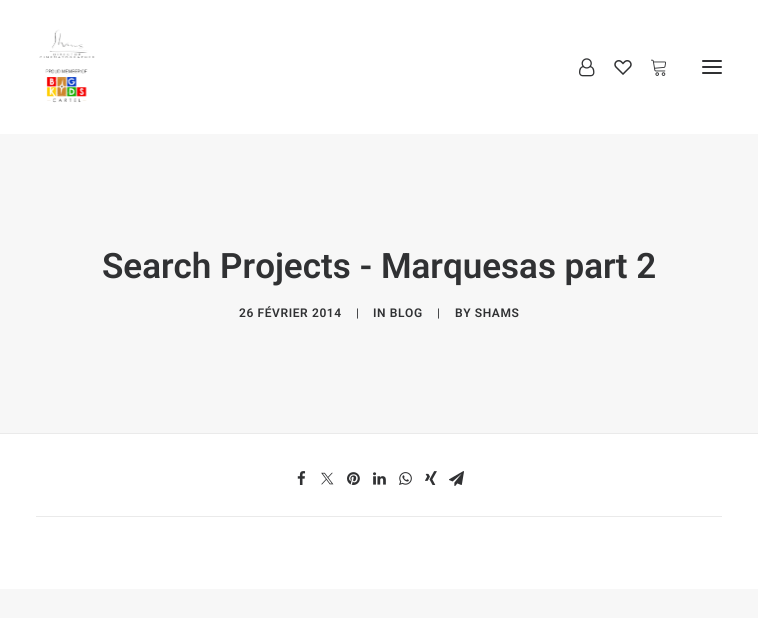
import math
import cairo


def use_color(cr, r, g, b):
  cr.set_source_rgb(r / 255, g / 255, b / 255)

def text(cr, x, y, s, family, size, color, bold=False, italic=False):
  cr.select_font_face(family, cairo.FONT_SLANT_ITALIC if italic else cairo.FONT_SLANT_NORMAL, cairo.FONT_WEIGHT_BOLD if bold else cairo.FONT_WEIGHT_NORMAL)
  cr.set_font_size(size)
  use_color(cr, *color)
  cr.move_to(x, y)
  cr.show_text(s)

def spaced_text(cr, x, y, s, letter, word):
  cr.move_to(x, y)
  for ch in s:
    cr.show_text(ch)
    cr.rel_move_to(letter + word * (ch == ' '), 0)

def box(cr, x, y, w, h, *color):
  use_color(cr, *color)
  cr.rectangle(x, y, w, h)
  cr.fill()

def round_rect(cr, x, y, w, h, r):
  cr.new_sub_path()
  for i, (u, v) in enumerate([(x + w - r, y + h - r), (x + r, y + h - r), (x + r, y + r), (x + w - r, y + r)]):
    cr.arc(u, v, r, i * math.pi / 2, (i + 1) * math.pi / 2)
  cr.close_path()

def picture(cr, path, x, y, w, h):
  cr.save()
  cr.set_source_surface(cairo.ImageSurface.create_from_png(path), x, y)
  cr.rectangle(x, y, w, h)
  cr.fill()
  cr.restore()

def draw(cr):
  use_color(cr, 247, 247, 247)
  cr.paint()
  box(cr, 0, 0, 758, 134, 255, 255, 255)
  picture(cr, "img_01.png", 39, 29, 56, 74)
  picture(cr, "img_02.png", 579, 58, 16, 19)
  picture(cr, "img_03.png", 614, 60, 18, 15)
  picture(cr, "img_04.png", 651, 59, 15, 17)
  use_color(cr, 48, 49, 51)
  round_rect(cr, 702, 66, 20, 2, 1)
  cr.fill()
  round_rect(cr, 702, 60, 20, 2, 1)
  cr.fill()
  round_rect(cr, 702, 72, 20, 2, 1)
  cr.fill()
  box(cr, 0, 434, 758, 155, 255, 255, 255)
  box(cr, 0, 433, 758, 1, 234, 234, 234)
  box(cr, 36, 516, 686, 1, 234, 234, 234)
  picture(cr, "img_05.png", 297, 471, 9, 14)
  picture(cr, "img_06.png", 321, 472, 13, 13)
  picture(cr, "img_07.png", 347, 472, 13, 13)
  picture(cr, "img_08.png", 373, 472, 13, 13)
  picture(cr, "img_09.png", 399, 472, 13, 13)
  picture(cr, "img_10.png", 425, 471, 12, 14)
  picture(cr, "img_11.png", 449, 471, 15, 15)
  text(cr, 102, 278, "Search Projects - Marquesas part 2", "Roboto SemiBold", 35, (48, 49, 51))
  cr.set_font_size(12)
  spaced_text(cr, 239, 317, "26 FÉVRIER 2014", 0.6, 0)
  cr.select_font_face("Roboto")
  spaced_text(cr, 356, 317, "|", 0.6, 0)
  cr.select_font_face("Roboto SemiBold")
  spaced_text(cr, 373, 317, "IN BLOG", 0.6, 0)
  cr.select_font_face("Roboto")
  spaced_text(cr, 437, 317, "|", 0.6, 0)
  cr.select_font_face("Roboto SemiBold")
  spaced_text(cr, 455, 317, "BY SHAMS", 0.6, 0)


surface = cairo.ImageSurface(cairo.FORMAT_RGB24, 758, 618)
cr = cairo.Context(surface)
options = cairo.FontOptions()
options.set_hint_metrics(cairo.HINT_METRICS_OFF)
options.set_hint_style(cairo.HINT_STYLE_NONE)
cr.set_font_options(options)
cr.set_miter_limit(4)
draw(cr)
surface.write_to_png("out.png")
